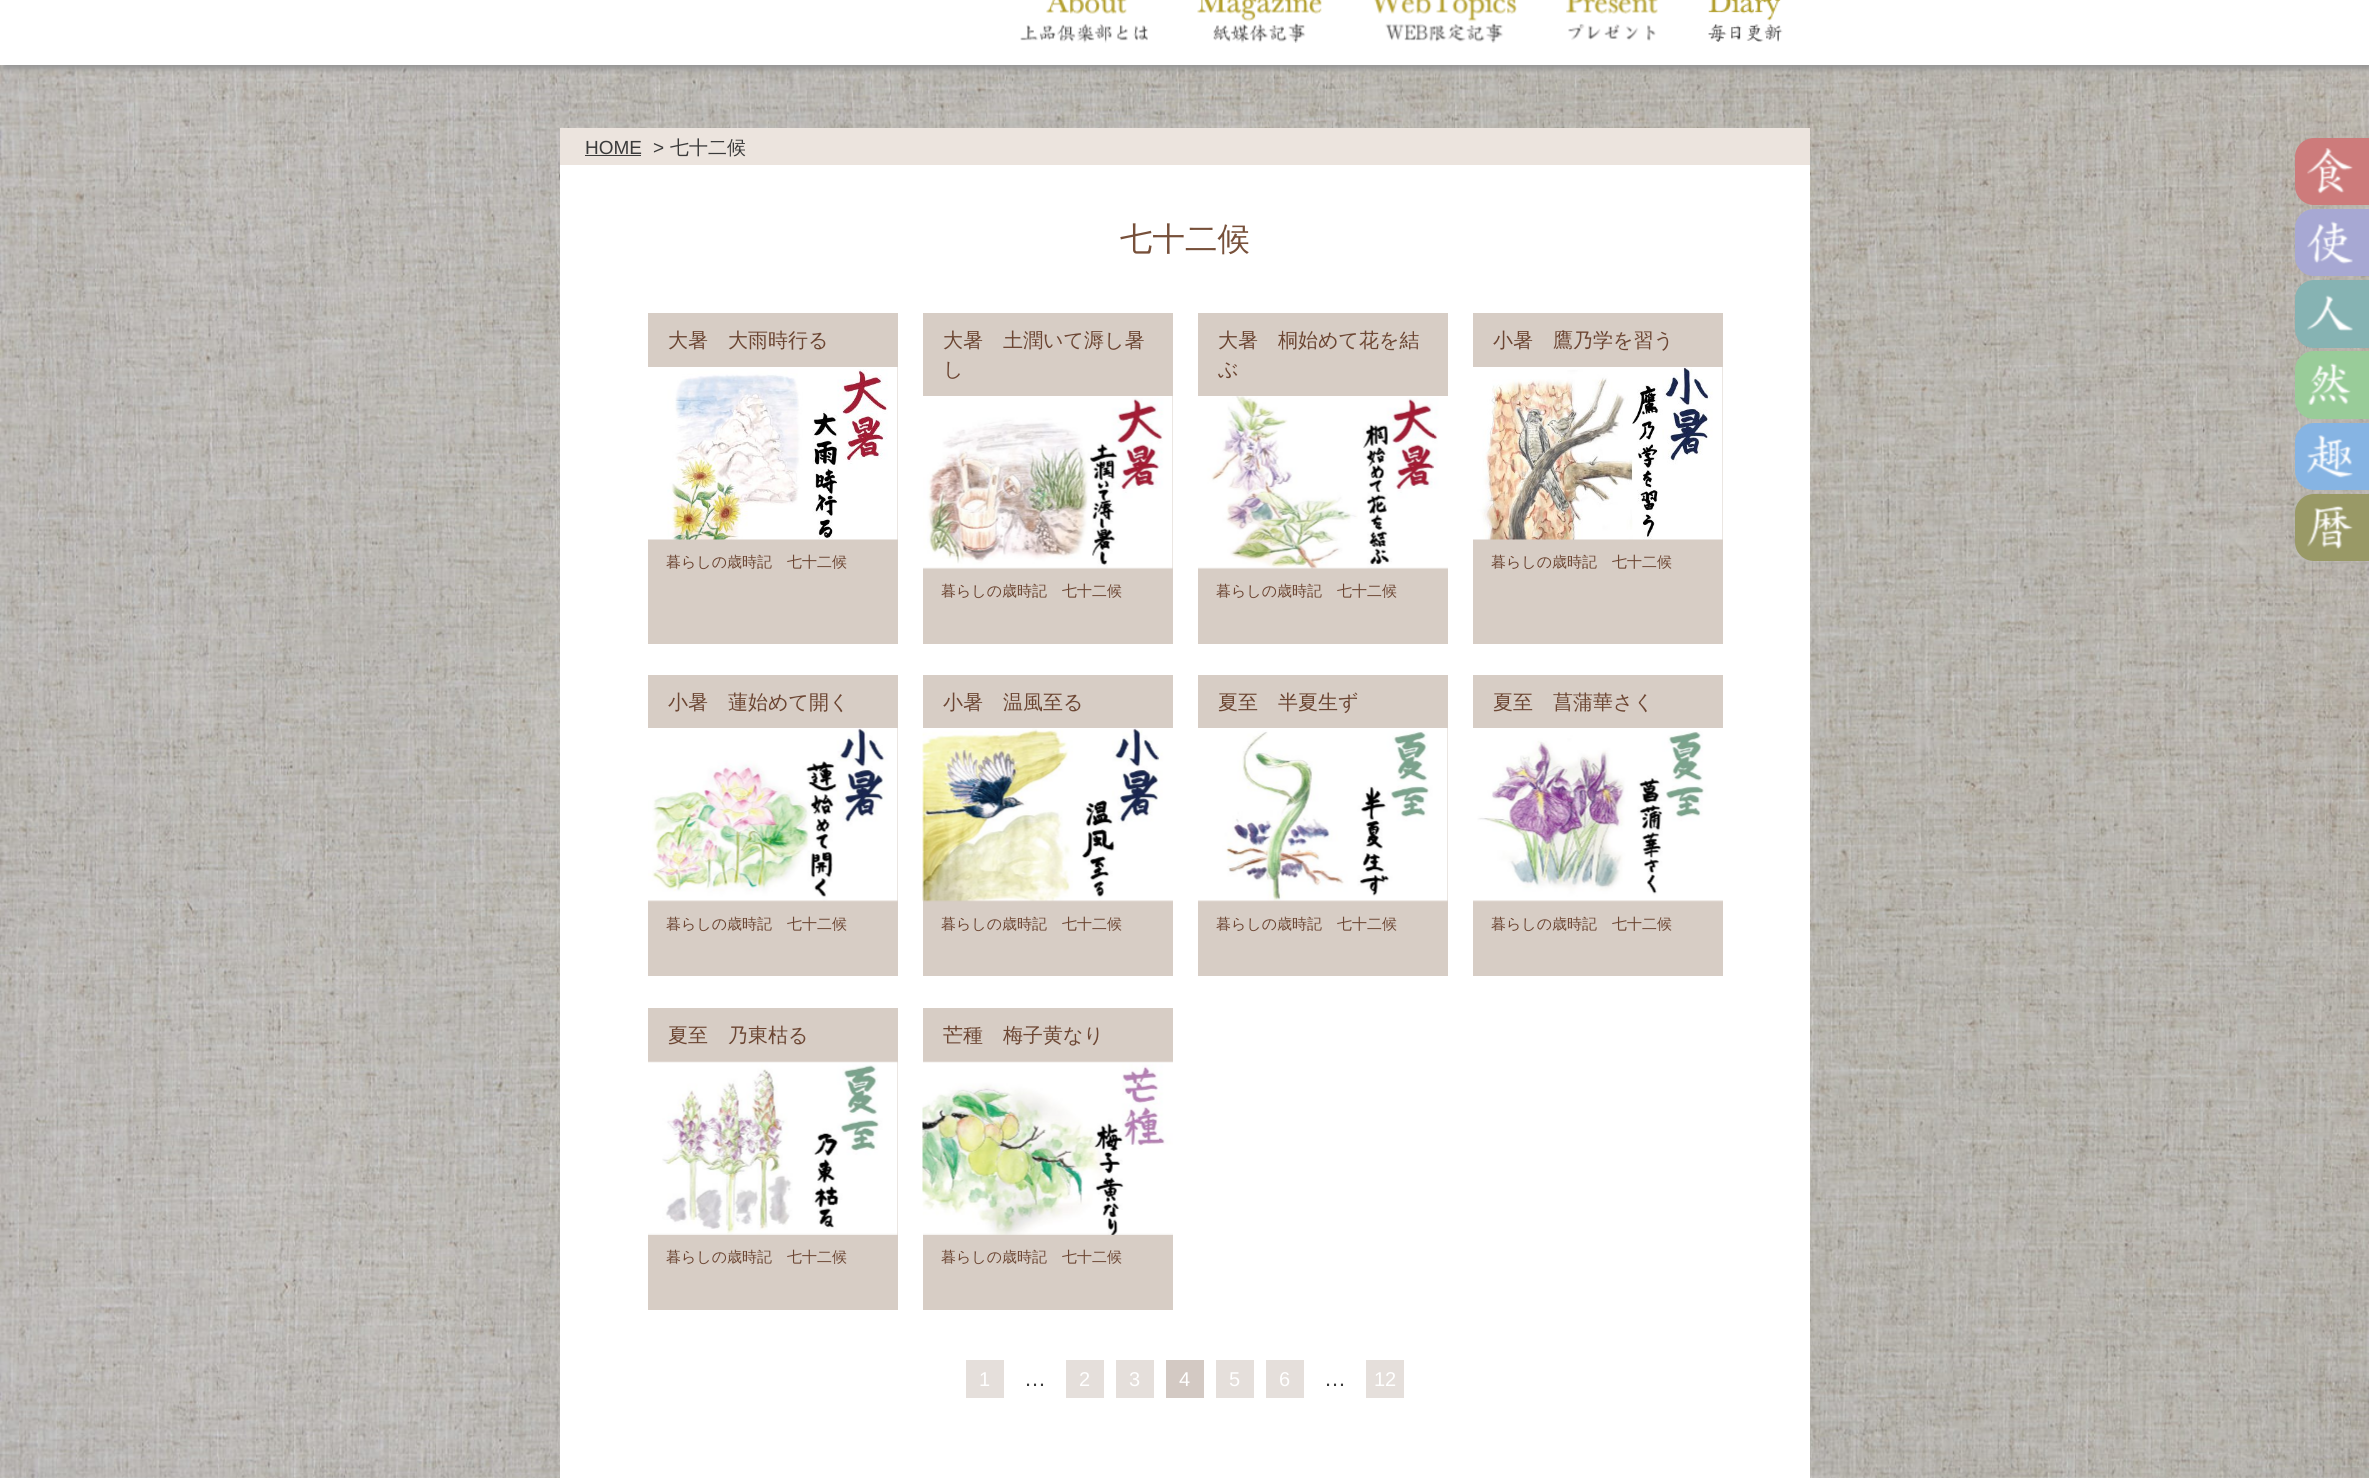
import math
import cairo


def use_color(cr, r, g, b):
  cr.set_source_rgb(r / 255, g / 255, b / 255)

def text(cr, x, y, s, family, size, color, bold=False, italic=False):
  cr.select_font_face(family, cairo.FONT_SLANT_ITALIC if italic else cairo.FONT_SLANT_NORMAL, cairo.FONT_WEIGHT_BOLD if bold else cairo.FONT_WEIGHT_NORMAL)
  cr.set_font_size(size)
  use_color(cr, *color)
  cr.move_to(x, y)
  cr.show_text(s)

def box(cr, x, y, w, h, *color):
  use_color(cr, *color)
  cr.rectangle(x, y, w, h)
  cr.fill()

def round_rect(cr, x, y, w, h, r):
  cr.new_sub_path()
  for i, (u, v) in enumerate([(x + w - r, y + h - r), (x + r, y + h - r), (x + r, y + r), (x + w - r, y + r)]):
    cr.arc(u, v, r, i * math.pi / 2, (i + 1) * math.pi / 2)
  cr.close_path()

def shadow(cr, x, y, w, h, r, blur, alpha):
  cr.push_group_with_content(cairo.CONTENT_ALPHA)
  cr.set_operator(cairo.OPERATOR_SOURCE)
  for i in range(15, -16, -2):
    e = blur * i / 6
    if min(w, h) + 2 * e > 0:
      cr.set_source_rgba(0, 0, 0, alpha * math.erfc((i - 1) / 8.5) / 2)
      round_rect(cr, x - e, y - e, w + 2 * e, h + 2 * e, max(0, min(r + e + blur * .6, min(w, h) / 2 + e)))
      cr.fill()
  cr.mask(cr.pop_group())

def picture(cr, path, x, y, w, h):
  cr.save()
  cr.set_source_surface(cairo.ImageSurface.create_from_png(path), x, y)
  cr.rectangle(x, y, w, h)
  cr.fill()
  cr.restore()

def draw(cr):
  use_color(cr, 255, 255, 255)
  cr.paint()
  picture(cr, "img_01.png", 0, 65, 2369, 1413)
  use_color(cr, 150, 150, 150)
  shadow(cr, 3, -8, 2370, 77, 0, 2.5, 1)
  box(cr, 0, 0, 2369, 65, 255, 255, 255)
  picture(cr, "img_02.png", 1020, 0, 128, 43)
  picture(cr, "img_03.png", 1197, 0, 125, 43)
  picture(cr, "img_04.png", 1374, 0, 143, 43)
  picture(cr, "img_05.png", 1566, 0, 92, 41)
  picture(cr, "img_06.png", 1708, 0, 75, 42)
  box(cr, 560, 128, 1250, 37, 236, 228, 222)
  box(cr, 585, 155, 56, 1, 58, 58, 58)
  box(cr, 560, 165, 1250, 1313, 255, 255, 255)
  box(cr, 648, 313, 250, 331, 215, 205, 197)
  picture(cr, "img_07.png", 648, 367, 250, 173)
  box(cr, 923, 313, 250, 331, 215, 205, 197)
  picture(cr, "img_08.png", 923, 396, 250, 173)
  box(cr, 1198, 313, 250, 331, 215, 205, 197)
  picture(cr, "img_09.png", 1198, 396, 250, 173)
  box(cr, 1473, 313, 250, 331, 215, 205, 197)
  picture(cr, "img_10.png", 1473, 367, 250, 173)
  box(cr, 648, 675, 250, 301, 215, 205, 197)
  picture(cr, "img_11.png", 648, 728, 250, 174)
  box(cr, 923, 675, 250, 301, 215, 205, 197)
  picture(cr, "img_12.png", 922, 728, 251, 174)
  box(cr, 1198, 675, 250, 301, 215, 205, 197)
  picture(cr, "img_13.png", 1198, 728, 250, 174)
  box(cr, 1473, 675, 250, 301, 215, 205, 197)
  picture(cr, "img_14.png", 1473, 728, 250, 174)
  box(cr, 648, 1008, 250, 302, 215, 205, 197)
  picture(cr, "img_15.png", 648, 1061, 250, 174)
  box(cr, 923, 1008, 250, 302, 215, 205, 197)
  picture(cr, "img_16.png", 922, 1061, 251, 174)
  box(cr, 966, 1360, 38, 38, 229, 223, 219)
  box(cr, 1066, 1360, 38, 38, 229, 223, 219)
  box(cr, 1116, 1360, 38, 38, 229, 223, 219)
  box(cr, 1166, 1360, 38, 38, 211, 201, 195)
  box(cr, 1216, 1360, 38, 38, 229, 223, 219)
  box(cr, 1266, 1360, 38, 38, 229, 223, 219)
  box(cr, 1366, 1360, 38, 38, 229, 223, 219)
  use_color(cr, 205, 123, 123)
  cr.new_path()
  cr.move_to(2314, 138)
  cr.line_to(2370, 138)
  cr.line_to(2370, 205)
  cr.line_to(2314, 205)
  cr.curve_to(2303.5, 205, 2295, 196.5, 2295, 186)
  cr.line_to(2295, 157)
  cr.curve_to(2295, 146.5, 2303.5, 138, 2314, 138)
  cr.close_path()
  cr.fill()
  picture(cr, "img_17.png", 2307, 148, 46, 46)
  use_color(cr, 167, 168, 211)
  cr.new_path()
  cr.move_to(2314, 209)
  cr.line_to(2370, 209)
  cr.line_to(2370, 276)
  cr.line_to(2314, 276)
  cr.curve_to(2303.5, 276, 2295, 267.5, 2295, 257)
  cr.line_to(2295, 228)
  cr.curve_to(2295, 217.5, 2303.5, 209, 2314, 209)
  cr.close_path()
  cr.fill()
  picture(cr, "img_18.png", 2307, 221, 46, 43)
  use_color(cr, 134, 179, 179)
  cr.new_path()
  cr.move_to(2314, 280)
  cr.line_to(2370, 280)
  cr.line_to(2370, 348)
  cr.line_to(2314, 348)
  cr.curve_to(2303.5, 348, 2295, 339.5, 2295, 329)
  cr.line_to(2295, 299)
  cr.curve_to(2295, 288.5, 2303.5, 280, 2314, 280)
  cr.close_path()
  cr.fill()
  picture(cr, "img_19.png", 2307, 295, 46, 36)
  use_color(cr, 153, 204, 153)
  cr.new_path()
  cr.move_to(2314, 351)
  cr.line_to(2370, 351)
  cr.line_to(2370, 419)
  cr.line_to(2314, 419)
  cr.curve_to(2303.5, 419, 2295, 410.5, 2295, 400)
  cr.line_to(2295, 370)
  cr.curve_to(2295, 359.5, 2303.5, 351, 2314, 351)
  cr.close_path()
  cr.fill()
  picture(cr, "img_20.png", 2308, 363, 43, 42)
  use_color(cr, 134, 180, 227)
  cr.new_path()
  cr.move_to(2314, 423)
  cr.line_to(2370, 423)
  cr.line_to(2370, 490)
  cr.line_to(2314, 490)
  cr.curve_to(2303.5, 490, 2295, 481.5, 2295, 471)
  cr.line_to(2295, 442)
  cr.curve_to(2295, 431.5, 2303.5, 423, 2314, 423)
  cr.close_path()
  cr.fill()
  picture(cr, "img_21.png", 2307, 435, 46, 43)
  use_color(cr, 153, 153, 102)
  cr.new_path()
  cr.move_to(2314, 494)
  cr.line_to(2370, 494)
  cr.line_to(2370, 561)
  cr.line_to(2314, 561)
  cr.curve_to(2303.5, 561, 2295, 552.5, 2295, 542)
  cr.line_to(2295, 513)
  cr.curve_to(2295, 502.5, 2303.5, 494, 2314, 494)
  cr.close_path()
  cr.fill()
  picture(cr, "img_22.png", 2307, 505, 46, 44)
  text(cr, 585, 154, "HOME", "Liberation Sans", 19, (58, 58, 58))
  text(cr, 653, 154, ">", "Liberation Sans", 19, (58, 58, 58))
  text(cr, 670, 154, "七十二候", "WenQuanYi Zen Hei Medium", 19, (58, 58, 58))
  text(cr, 1120, 250, "七十二候", "WenQuanYi Zen Hei Medium", 32.5, (119, 80, 58))
  text(cr, 668, 347, "大暑　大雨時行る", "WenQuanYi Zen Hei Medium", 20, (108, 70, 51))
  text(cr, 666, 567, "暮らしの歳時記　七十二候", "WenQuanYi Zen Hei Medium", 15, (108, 70, 51))
  text(cr, 943, 347, "大暑　土潤いて溽し暑", "WenQuanYi Zen Hei Medium", 20, (108, 70, 51))
  text(cr, 943, 376, "し", "WenQuanYi Zen Hei Medium", 20, (108, 70, 51))
  text(cr, 941, 596, "暮らしの歳時記　七十二候", "WenQuanYi Zen Hei Medium", 15, (108, 70, 51))
  text(cr, 1218, 347, "大暑　桐始めて花を結", "WenQuanYi Zen Hei Medium", 20, (108, 70, 51))
  text(cr, 1218, 376, "ぶ", "WenQuanYi Zen Hei Medium", 20, (108, 70, 51))
  text(cr, 1216, 596, "暮らしの歳時記　七十二候", "WenQuanYi Zen Hei Medium", 15, (108, 70, 51))
  text(cr, 1493, 347, "小暑　鷹乃学を習う", "WenQuanYi Zen Hei Medium", 20, (108, 70, 51))
  text(cr, 1491, 567, "暮らしの歳時記　七十二候", "WenQuanYi Zen Hei Medium", 15, (108, 70, 51))
  text(cr, 668, 709, "小暑　蓮始めて開く", "WenQuanYi Zen Hei Medium", 20, (108, 70, 51))
  text(cr, 666, 929, "暮らしの歳時記　七十二候", "WenQuanYi Zen Hei Medium", 15, (108, 70, 51))
  text(cr, 943, 709, "小暑　温風至る", "WenQuanYi Zen Hei Medium", 20, (108, 70, 51))
  text(cr, 941, 929, "暮らしの歳時記　七十二候", "WenQuanYi Zen Hei Medium", 15, (108, 70, 51))
  text(cr, 1218, 709, "夏至　半夏生ず", "WenQuanYi Zen Hei Medium", 20, (108, 70, 51))
  text(cr, 1216, 929, "暮らしの歳時記　七十二候", "WenQuanYi Zen Hei Medium", 15, (108, 70, 51))
  text(cr, 1493, 709, "夏至　菖蒲華さく", "WenQuanYi Zen Hei Medium", 20, (108, 70, 51))
  text(cr, 1491, 929, "暮らしの歳時記　七十二候", "WenQuanYi Zen Hei Medium", 15, (108, 70, 51))
  text(cr, 668, 1042, "夏至　乃東枯る", "WenQuanYi Zen Hei Medium", 20, (108, 70, 51))
  text(cr, 666, 1262, "暮らしの歳時記　七十二候", "WenQuanYi Zen Hei Medium", 15, (108, 70, 51))
  text(cr, 943, 1042, "芒種　梅子黄なり", "WenQuanYi Zen Hei Medium", 20, (108, 70, 51))
  text(cr, 941, 1262, "暮らしの歳時記　七十二候", "WenQuanYi Zen Hei Medium", 15, (108, 70, 51))
  text(cr, 979, 1386, "1", "Liberation Sans", 20, (255, 255, 255))
  text(cr, 1024, 1386, "…", "Liberation Sans", 22, (58, 58, 58))
  text(cr, 1079, 1386, "2", "Liberation Sans", 20, (255, 255, 255))
  text(cr, 1129, 1386, "3", "Liberation Sans", 20, (255, 255, 255))
  text(cr, 1179, 1386, "4", "Liberation Sans", 20, (255, 255, 255))
  text(cr, 1229, 1386, "5", "Liberation Sans", 20, (255, 255, 255))
  text(cr, 1279, 1386, "6", "Liberation Sans", 20, (255, 255, 255))
  text(cr, 1324, 1386, "…", "Liberation Sans", 22, (58, 58, 58))
  text(cr, 1374, 1386, "12", "Liberation Sans", 20, (255, 255, 255))


surface = cairo.ImageSurface(cairo.FORMAT_RGB24, 2369, 1478)
cr = cairo.Context(surface)
options = cairo.FontOptions()
options.set_hint_metrics(cairo.HINT_METRICS_OFF)
options.set_hint_style(cairo.HINT_STYLE_NONE)
cr.set_font_options(options)
cr.set_miter_limit(4)
draw(cr)
surface.write_to_png("out.png")
